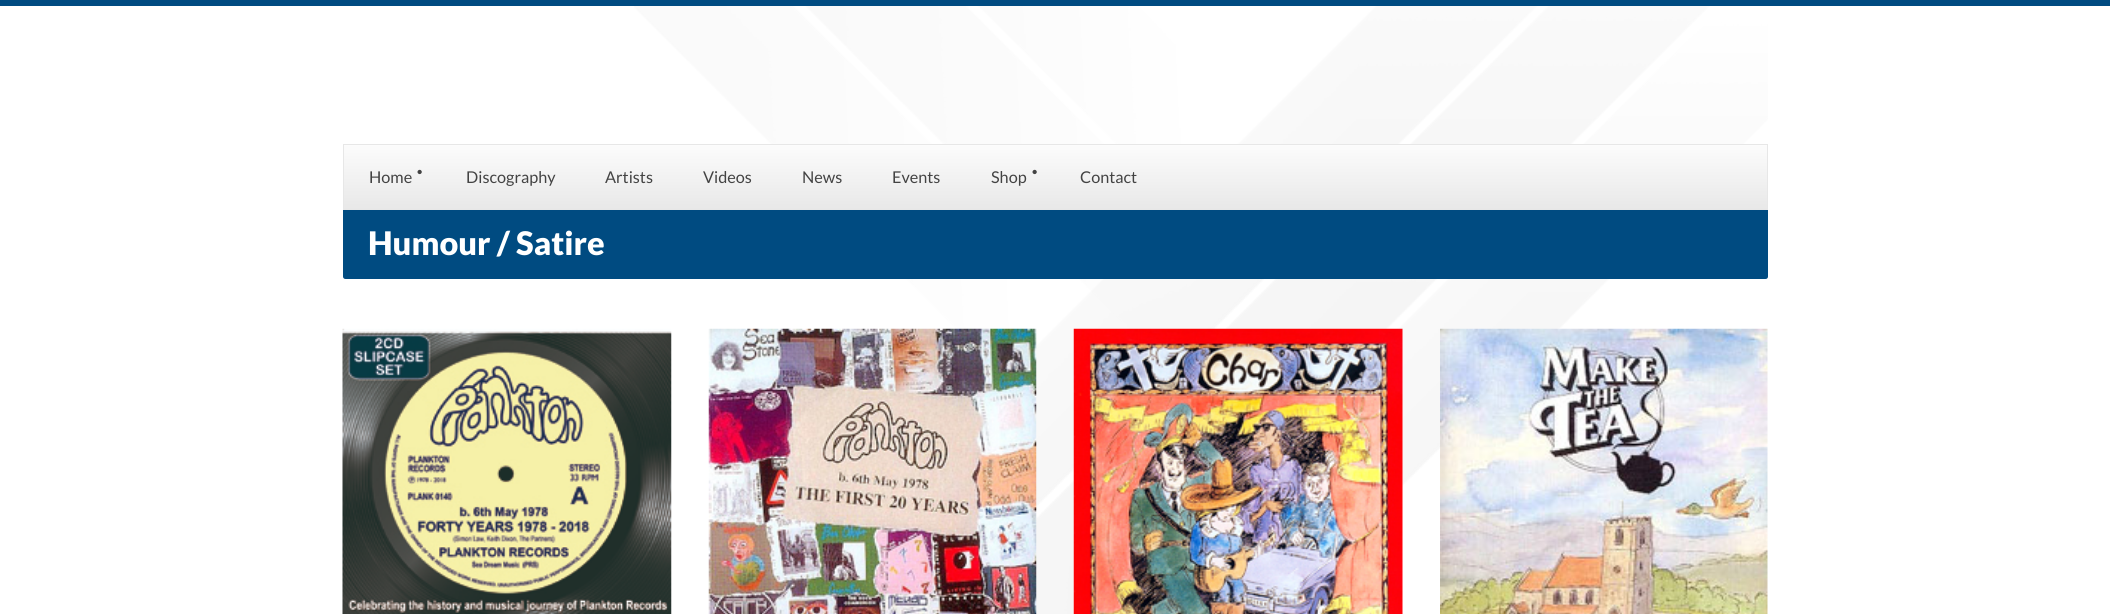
import math
import cairo


def use_color(cr, r, g, b):
  cr.set_source_rgb(r / 255, g / 255, b / 255)

def text(cr, x, y, s, family, size, color, bold=False, italic=False):
  cr.select_font_face(family, cairo.FONT_SLANT_ITALIC if italic else cairo.FONT_SLANT_NORMAL, cairo.FONT_WEIGHT_BOLD if bold else cairo.FONT_WEIGHT_NORMAL)
  cr.set_font_size(size)
  use_color(cr, *color)
  cr.move_to(x, y)
  cr.show_text(s)

def box(cr, x, y, w, h, *color):
  use_color(cr, *color)
  cr.rectangle(x, y, w, h)
  cr.fill()

def picture(cr, path, x, y, w, h):
  cr.save()
  cr.set_source_surface(cairo.ImageSurface.create_from_png(path), x, y)
  cr.rectangle(x, y, w, h)
  cr.fill()
  cr.restore()

def draw(cr):
  use_color(cr, 255, 255, 255)
  cr.paint()
  picture(cr, "img_01.png", 634, 6, 1134, 608)
  box(cr, 0, 0, 2110, 6, 0, 75, 129)
  gradient = cairo.LinearGradient(1055, 145, 1055, 209)
  gradient.add_color_stop_rgba(0, 0.988, 0.988, 0.988, 1)
  gradient.add_color_stop_rgba(1, 0.91, 0.91, 0.91, 1)
  cr.set_source(gradient)
  cr.rectangle(344, 145, 1423, 64)
  cr.fill()
  cr.rectangle(343.5, 144.5, 1424, 65)
  use_color(cr, 231, 231, 231)
  cr.set_line_width(1)
  cr.stroke()
  picture(cr, "img_02.png", 417, 169, 5, 6)
  picture(cr, "img_02.png", 1032, 169, 5, 6)
  use_color(cr, 0, 75, 129)
  cr.new_path()
  cr.move_to(343, 210)
  cr.line_to(1768, 210)
  cr.line_to(1768, 276.5)
  cr.curve_to(1768, 278, 1767, 279, 1765.5, 279)
  cr.line_to(345.5, 279)
  cr.curve_to(344, 279, 343, 278, 343, 276.5)
  cr.close_path()
  cr.fill()
  picture(cr, "img_03.png", 342, 328, 330, 286)
  picture(cr, "img_04.png", 708, 328, 329, 286)
  picture(cr, "img_05.png", 1073, 328, 330, 286)
  picture(cr, "img_06.png", 1440, 328, 328, 286)
  text(cr, 369, 183, "Home", "Lato", 16.25, (67, 67, 67))
  text(cr, 466, 183, "Discography", "Lato", 16.25, (67, 67, 67))
  text(cr, 605, 183, "Artists", "Lato", 16.25, (67, 67, 67))
  text(cr, 703, 183, "Videos", "Lato", 16.25, (67, 67, 67))
  text(cr, 802, 183, "News", "Lato", 16.25, (67, 67, 67))
  text(cr, 892, 183, "Events", "Lato", 16.25, (67, 67, 67))
  text(cr, 991, 183, "Shop", "Lato", 16.25, (67, 67, 67))
  text(cr, 1080, 183, "Contact", "Lato", 16.25, (67, 67, 67))
  text(cr, 368, 255, "Humour / Satire", "Lato Black", 32.5, (255, 255, 255))


surface = cairo.ImageSurface(cairo.FORMAT_RGB24, 2110, 614)
cr = cairo.Context(surface)
options = cairo.FontOptions()
options.set_hint_metrics(cairo.HINT_METRICS_OFF)
options.set_hint_style(cairo.HINT_STYLE_NONE)
cr.set_font_options(options)
cr.set_miter_limit(4)
draw(cr)
surface.write_to_png("out.png")
